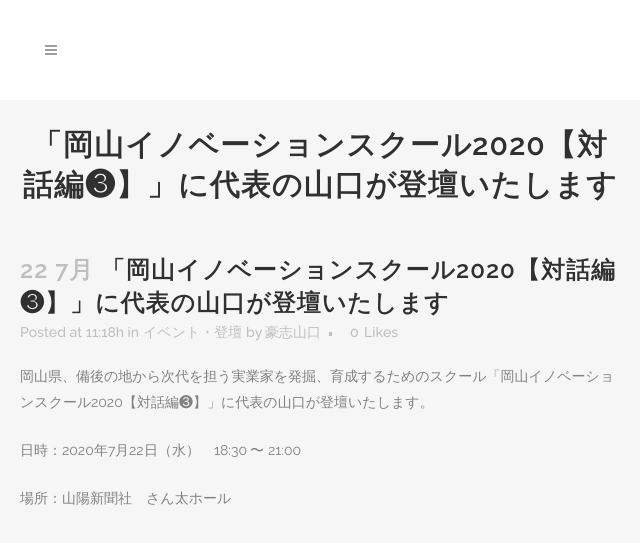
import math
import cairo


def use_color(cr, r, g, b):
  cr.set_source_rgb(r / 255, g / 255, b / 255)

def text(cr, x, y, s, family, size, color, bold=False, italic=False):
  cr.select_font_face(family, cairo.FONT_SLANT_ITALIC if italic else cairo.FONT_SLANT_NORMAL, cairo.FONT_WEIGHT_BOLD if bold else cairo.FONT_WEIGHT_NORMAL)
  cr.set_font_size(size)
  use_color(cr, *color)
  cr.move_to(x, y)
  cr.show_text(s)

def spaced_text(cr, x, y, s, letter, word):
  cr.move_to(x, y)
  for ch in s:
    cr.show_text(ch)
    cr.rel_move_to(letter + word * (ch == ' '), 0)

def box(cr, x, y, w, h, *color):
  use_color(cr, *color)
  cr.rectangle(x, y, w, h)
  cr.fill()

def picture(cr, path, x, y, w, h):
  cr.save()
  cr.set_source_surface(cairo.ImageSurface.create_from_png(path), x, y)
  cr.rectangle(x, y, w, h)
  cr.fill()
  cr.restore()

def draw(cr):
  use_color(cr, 246, 246, 246)
  cr.paint()
  box(cr, 0, 0, 640, 100, 255, 255, 255)
  picture(cr, "img_01.png", 45, 45, 12, 10)
  box(cr, 329, 332, 3, 4, 190, 190, 190)
  cr.select_font_face("WenQuanYi Zen Hei", cairo.FONT_SLANT_NORMAL, cairo.FONT_WEIGHT_BOLD)
  cr.set_font_size(30)
  use_color(cr, 48, 48, 48)
  spaced_text(cr, 32, 155, "「岡山イノベーションスクール", 1, 0)
  cr.select_font_face("Raleway SemiBold")
  spaced_text(cr, 472, 155, "2020", 1, 0)
  cr.select_font_face("WenQuanYi Zen Hei", cairo.FONT_SLANT_NORMAL, cairo.FONT_WEIGHT_BOLD)
  spaced_text(cr, 546, 155, "【対", 1, 0)
  spaced_text(cr, 23, 195, "話編", 1, 0)
  cr.select_font_face("IPAPGothic", cairo.FONT_SLANT_NORMAL, cairo.FONT_WEIGHT_BOLD)
  spaced_text(cr, 85, 195, "❸", 1, 0)
  cr.select_font_face("WenQuanYi Zen Hei", cairo.FONT_SLANT_NORMAL, cairo.FONT_WEIGHT_BOLD)
  spaced_text(cr, 116, 195, "】」に代表の山口が登壇いたします", 1, 0)
  cr.select_font_face("Raleway SemiBold")
  cr.set_font_size(24)
  use_color(cr, 190, 190, 190)
  spaced_text(cr, 20, 278, "22 7", 1, 0)
  cr.select_font_face("WenQuanYi Zen Hei", cairo.FONT_SLANT_NORMAL, cairo.FONT_WEIGHT_BOLD)
  spaced_text(cr, 69, 278, "月", 1, 0)
  use_color(cr, 48, 48, 48)
  spaced_text(cr, 101, 278, "「岡山イノベーションスクール", 1, 0)
  cr.select_font_face("Raleway SemiBold")
  spaced_text(cr, 456, 278, "2020", 1, 0)
  cr.select_font_face("WenQuanYi Zen Hei", cairo.FONT_SLANT_NORMAL, cairo.FONT_WEIGHT_BOLD)
  spaced_text(cr, 516, 278, "【対話編", 1, 0)
  cr.select_font_face("IPAPGothic", cairo.FONT_SLANT_NORMAL, cairo.FONT_WEIGHT_BOLD)
  spaced_text(cr, 20, 311, "❸", 1, 0)
  cr.select_font_face("WenQuanYi Zen Hei", cairo.FONT_SLANT_NORMAL, cairo.FONT_WEIGHT_BOLD)
  spaced_text(cr, 45, 311, "】」に代表の山口が登壇いたします", 1, 0)
  text(cr, 20, 337, "Posted at 11:18h in", "Raleway Medium", 14, (190, 190, 190))
  text(cr, 143, 337, "イベント・登壇", "WenQuanYi Zen Hei Medium", 14, (190, 190, 190))
  text(cr, 246, 337, "by", "Raleway Medium", 14, (190, 190, 190))
  text(cr, 265, 337, "豪志山口", "WenQuanYi Zen Hei Medium", 14, (190, 190, 190))
  text(cr, 350, 337, "0", "Raleway Medium", 14, (190, 190, 190))
  text(cr, 364, 337, "Likes", "Raleway Medium", 14, (190, 190, 190))
  text(cr, 20, 381, "岡山県、備後の地から次代を担う実業家を発掘、育成するためのスクール「岡山イノベーショ", "WenQuanYi Zen Hei Medium", 14, (129, 129, 129))
  text(cr, 20, 407, "ンスクール", "WenQuanYi Zen Hei Medium", 14, (129, 129, 129))
  text(cr, 91, 407, "2020", "Raleway", 14, (129, 129, 129))
  text(cr, 123, 407, "【対話編", "WenQuanYi Zen Hei Medium", 14, (129, 129, 129))
  text(cr, 179, 407, "❸", "IPAPGothic", 14, (129, 129, 129))
  text(cr, 193, 407, "】」に代表の山口が登壇いたします。", "WenQuanYi Zen Hei Medium", 14, (129, 129, 129))
  text(cr, 20, 455, "日時：", "WenQuanYi Zen Hei Medium", 14, (129, 129, 129))
  text(cr, 62, 455, "2020", "Raleway", 14, (129, 129, 129))
  text(cr, 94, 455, "年", "WenQuanYi Zen Hei Medium", 14, (129, 129, 129))
  text(cr, 108, 455, "7", "Raleway", 14, (129, 129, 129))
  text(cr, 115, 455, "月", "WenQuanYi Zen Hei Medium", 14, (129, 129, 129))
  text(cr, 129, 455, "22", "Raleway", 14, (129, 129, 129))
  text(cr, 144, 455, "日（水）", "WenQuanYi Zen Hei Medium", 14, (129, 129, 129))
  text(cr, 214, 455, "18:30", "Raleway", 14, (129, 129, 129))
  text(cr, 250, 455, "〜", "WenQuanYi Zen Hei Medium", 14, (129, 129, 129))
  text(cr, 268, 455, "21:00", "Raleway", 14, (129, 129, 129))
  text(cr, 20, 503, "場所：山陽新聞社　さん太ホール", "WenQuanYi Zen Hei Medium", 14, (129, 129, 129))


surface = cairo.ImageSurface(cairo.FORMAT_RGB24, 640, 543)
cr = cairo.Context(surface)
options = cairo.FontOptions()
options.set_hint_metrics(cairo.HINT_METRICS_OFF)
options.set_hint_style(cairo.HINT_STYLE_NONE)
cr.set_font_options(options)
cr.set_miter_limit(4)
draw(cr)
surface.write_to_png("out.png")
